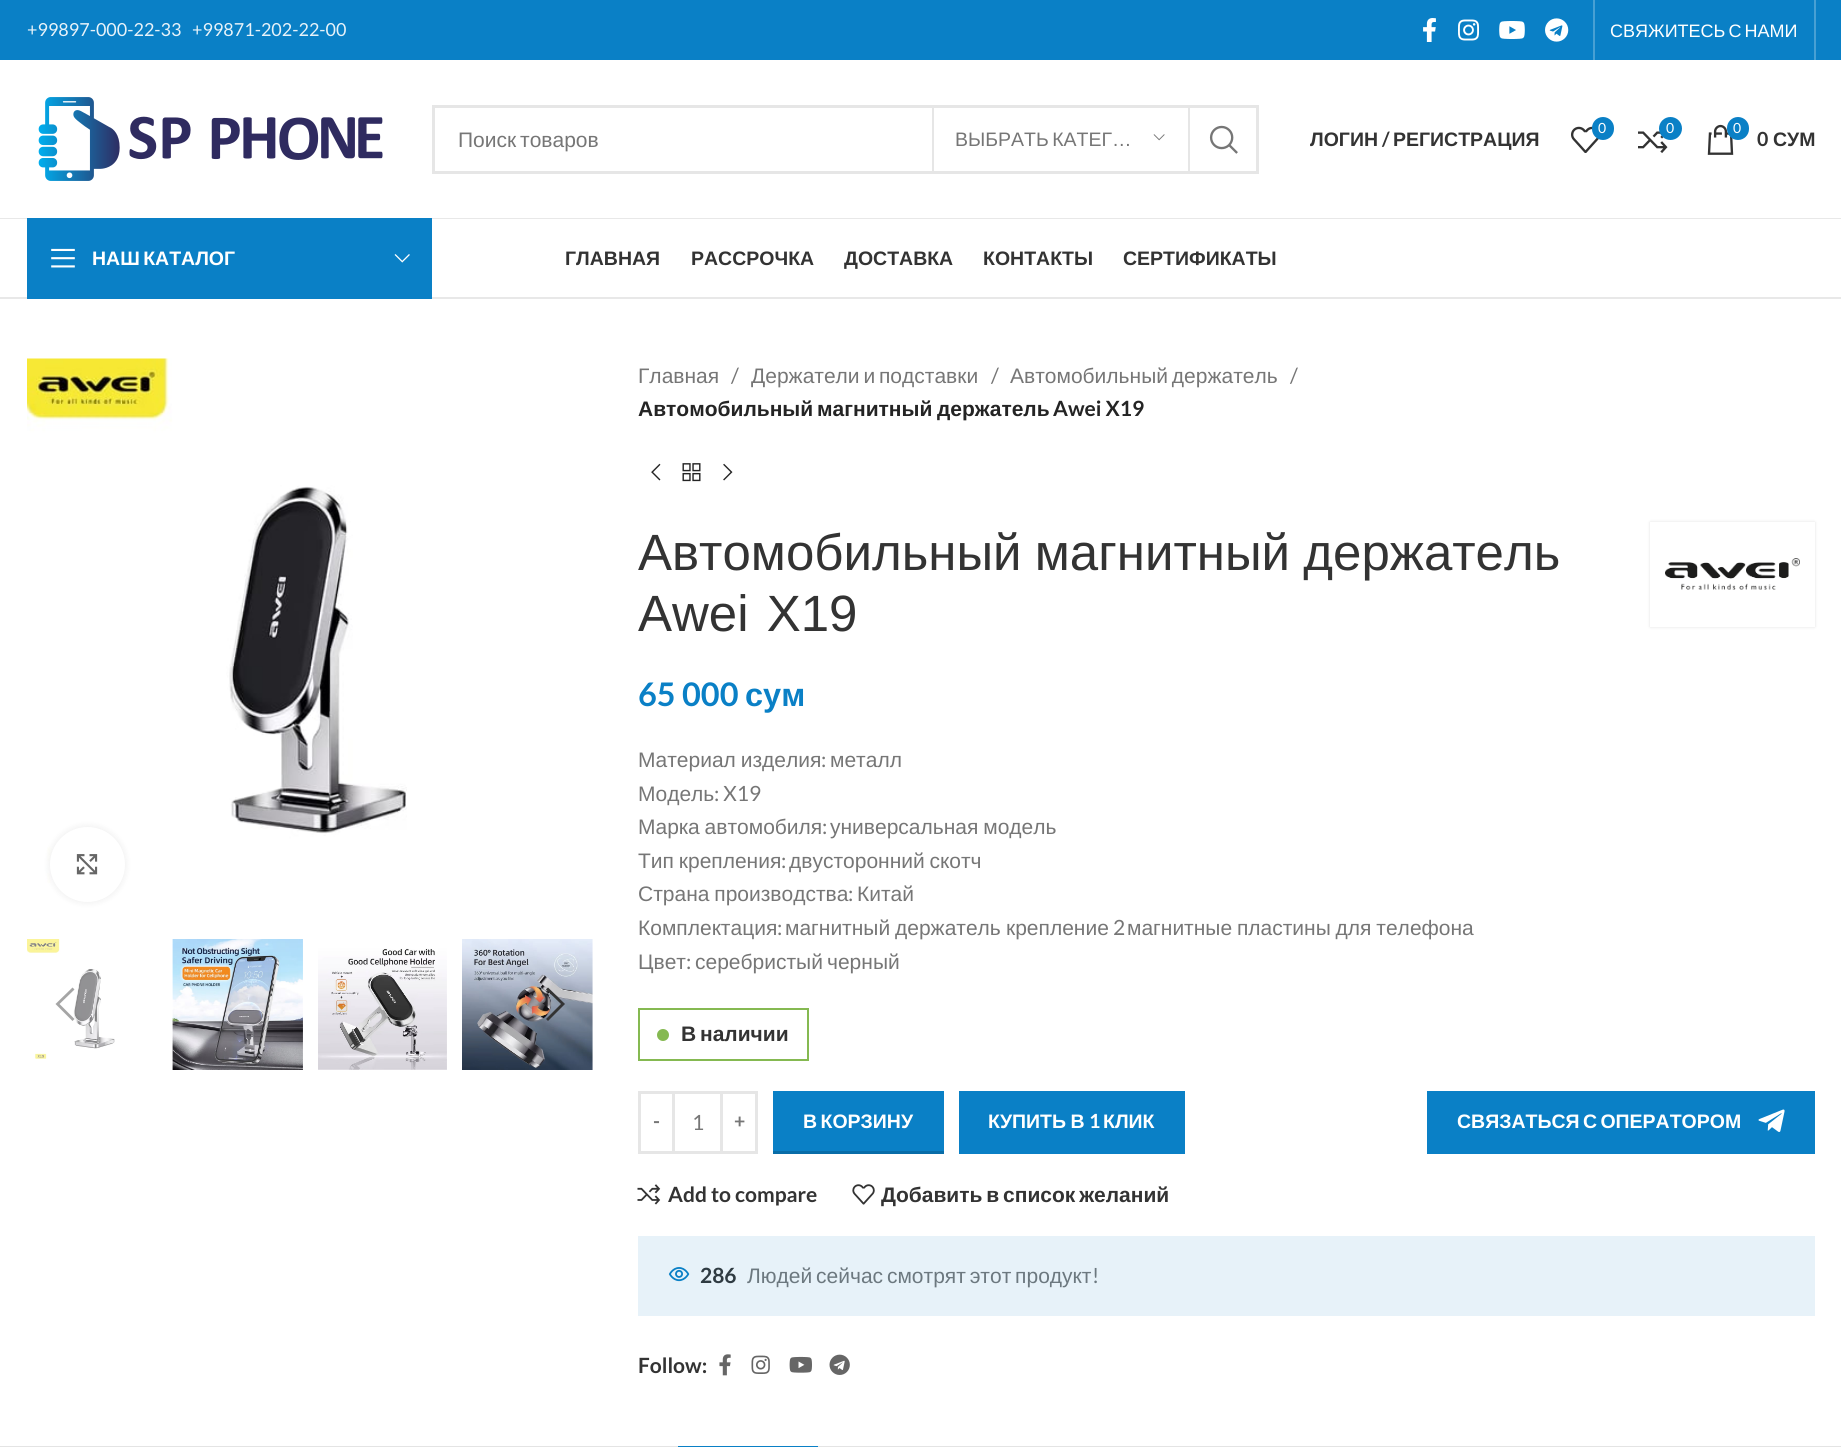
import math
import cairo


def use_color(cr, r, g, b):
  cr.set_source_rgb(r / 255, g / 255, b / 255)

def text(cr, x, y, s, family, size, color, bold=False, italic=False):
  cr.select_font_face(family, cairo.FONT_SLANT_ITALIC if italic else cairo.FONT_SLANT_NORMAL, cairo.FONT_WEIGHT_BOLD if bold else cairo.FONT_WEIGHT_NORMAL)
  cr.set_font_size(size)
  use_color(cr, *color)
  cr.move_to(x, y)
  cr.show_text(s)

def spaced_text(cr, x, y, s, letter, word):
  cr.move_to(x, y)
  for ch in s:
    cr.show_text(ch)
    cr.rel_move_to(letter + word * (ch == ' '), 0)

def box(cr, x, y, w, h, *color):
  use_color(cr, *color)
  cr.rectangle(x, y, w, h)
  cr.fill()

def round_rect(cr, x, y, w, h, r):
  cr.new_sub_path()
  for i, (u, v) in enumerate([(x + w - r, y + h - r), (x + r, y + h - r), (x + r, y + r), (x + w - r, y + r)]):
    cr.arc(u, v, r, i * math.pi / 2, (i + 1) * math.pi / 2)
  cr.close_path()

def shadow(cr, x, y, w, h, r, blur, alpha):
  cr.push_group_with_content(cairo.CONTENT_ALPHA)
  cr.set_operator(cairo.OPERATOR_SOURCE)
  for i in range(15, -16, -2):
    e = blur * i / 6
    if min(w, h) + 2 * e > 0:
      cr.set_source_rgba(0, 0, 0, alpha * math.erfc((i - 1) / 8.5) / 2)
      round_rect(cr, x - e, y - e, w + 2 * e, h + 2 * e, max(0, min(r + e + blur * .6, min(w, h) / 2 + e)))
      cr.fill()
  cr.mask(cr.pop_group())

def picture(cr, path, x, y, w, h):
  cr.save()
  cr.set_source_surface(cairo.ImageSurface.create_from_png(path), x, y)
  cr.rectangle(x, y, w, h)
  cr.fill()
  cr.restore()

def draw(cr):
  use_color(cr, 255, 255, 255)
  cr.paint()
  box(cr, 638, 1236, 1177, 80, 231, 242, 249)
  box(cr, 0, 0, 1841, 60, 10, 128, 198)
  picture(cr, "img_01.png", 1423, 18, 13, 24)
  picture(cr, "img_02.png", 1458, 19, 21, 22)
  picture(cr, "img_03.png", 1499, 21, 26, 18)
  picture(cr, "img_04.png", 1545, 18, 24, 24)
  box(cr, 1593, 0, 2, 60, 71, 160, 212)
  box(cr, 1814, 0, 2, 60, 71, 160, 212)
  box(cr, 0, 218, 1841, 1, 232, 232, 232)
  picture(cr, "img_05.png", 38, 97, 345, 84)
  cr.rectangle(433.5, 106.5, 824, 66)
  use_color(cr, 230, 230, 230)
  cr.set_line_width(3)
  cr.stroke()
  box(cr, 1188, 108, 2, 63, 230, 230, 230)
  box(cr, 932, 108, 2, 63, 230, 230, 230)
  picture(cr, "img_06.png", 1153, 134, 12, 7)
  picture(cr, "img_07.png", 1209, 125, 29, 29)
  picture(cr, "img_08.png", 1571, 126, 28, 27)
  use_color(cr, 10, 128, 198)
  round_rect(cr, 1592, 117, 22, 23, 11)
  cr.fill()
  picture(cr, "img_09.png", 1638, 131, 30, 22)
  cr.arc(1670.5, 128.5, 11.5, 0, 2 * math.pi)
  cr.fill()
  picture(cr, "img_10.png", 1707, 124, 27, 31)
  round_rect(cr, 1727, 117, 22, 23, 11)
  cr.fill()
  box(cr, 0, 297, 1841, 2, 232, 232, 232)
  box(cr, 27, 218, 405, 81, 10, 128, 198)
  picture(cr, "img_11.png", 51, 248, 24, 20)
  picture(cr, "img_12.png", 394, 254, 16, 9)
  picture(cr, "img_13.png", 27, 358, 380, 525)
  use_color(cr, 0, 0, 0)
  shadow(cr, 50, 827, 75, 75, 37.5, 4, 0.08)
  use_color(cr, 255, 255, 255)
  cr.arc(87.5, 864.5, 37.5, 0, 2 * math.pi)
  cr.fill()
  picture(cr, "img_14.png", 76, 854, 22, 21)
  picture(cr, "img_15.png", 27, 939, 88, 120)
  picture(cr, "img_16.png", 172, 939, 131, 131)
  picture(cr, "img_17.png", 318, 948, 129, 122)
  picture(cr, "img_18.png", 462, 939, 131, 131)
  use_color(cr, 165, 165, 165)
  cr.new_path()
  cr.move_to(74.5, 989.5)
  cr.line_to(72.5, 987.5)
  cr.line_to(55.5, 1004)
  cr.line_to(72.5, 1021)
  cr.line_to(74.5, 1019)
  cr.line_to(59.5, 1004)
  cr.close_path()
  cr.fill()
  use_color(cr, 51, 51, 51)
  cr.new_path()
  cr.move_to(546, 989.5)
  cr.line_to(561, 1004)
  cr.line_to(546, 1019)
  cr.line_to(548, 1021)
  cr.line_to(565, 1004)
  cr.line_to(548, 987.5)
  cr.close_path()
  cr.fill()
  picture(cr, "img_19.png", 651, 463, 10, 18)
  picture(cr, "img_20.png", 682, 463, 19, 19)
  picture(cr, "img_21.png", 723, 463, 10, 18)
  cr.save()
  cr.set_fill_rule(cairo.FILL_RULE_EVEN_ODD)
  cr.new_path()
  cr.move_to(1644, 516)
  cr.line_to(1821, 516)
  cr.line_to(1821, 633)
  cr.line_to(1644, 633)
  cr.close_path()
  cr.move_to(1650, 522)
  cr.line_to(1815, 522)
  cr.line_to(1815, 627)
  cr.line_to(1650, 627)
  cr.close_path()
  cr.clip()
  use_color(cr, 0, 0, 0)
  shadow(cr, 1650, 522, 165, 105, 0, 1.5, 0.12)
  cr.restore()
  picture(cr, "img_22.png", 1665, 558, 135, 32)
  cr.rectangle(639, 1009, 169, 51)
  use_color(cr, 133, 185, 81)
  cr.set_line_width(2)
  cr.stroke()
  cr.arc(663, 1035, 6, 0, 2 * math.pi)
  cr.fill()
  cr.rectangle(639.5, 1092.5, 34, 60)
  use_color(cr, 230, 230, 230)
  cr.set_line_width(3)
  cr.stroke()
  box(cr, 675, 1091, 45, 3, 230, 230, 230)
  box(cr, 675, 1151, 45, 3, 230, 230, 230)
  cr.rectangle(721.5, 1092.5, 35, 60)
  cr.stroke()
  box(cr, 773, 1091, 171, 60, 10, 128, 198)
  box(cr, 773, 1151, 171, 3, 9, 109, 168)
  box(cr, 959, 1091, 226, 63, 10, 128, 198)
  box(cr, 1427, 1091, 388, 63, 10, 128, 198)
  picture(cr, "img_23.png", 1758, 1109, 27, 23)
  picture(cr, "img_24.png", 637, 1184, 24, 21)
  picture(cr, "img_25.png", 852, 1184, 23, 21)
  picture(cr, "img_26.png", 668, 1267, 22, 15)
  picture(cr, "img_27.png", 719, 1354, 12, 22)
  picture(cr, "img_28.png", 751, 1355, 19, 19)
  picture(cr, "img_29.png", 789, 1356, 23, 17)
  picture(cr, "img_30.png", 829, 1354, 21, 21)
  box(cr, 0, 1446, 1841, 1, 228, 228, 228)
  box(cr, 678, 1446, 140, 1, 10, 128, 198)
  text(cr, 27, 36, "+99897-000-22-33", "Lato", 18, (231, 242, 249))
  text(cr, 192, 36, "+99871-202-22-00", "Lato", 18, (231, 242, 249))
  cr.select_font_face("Liberation Sans")
  use_color(cr, 255, 255, 255)
  spaced_text(cr, 1610, 37, "СВЯЖИТЕСЬ С НАМИ", 0, -2)
  cr.set_font_size(21)
  use_color(cr, 118, 118, 118)
  spaced_text(cr, 458, 147, "Поиск товаров", 0, -2)
  cr.set_font_size(19.5)
  spaced_text(cr, 955, 146, "ВЫБРАТЬ КАТЕГ…", 0, -2)
  text(cr, 1310, 146, "ЛОГИН", "Liberation Sans", 19.5, (51, 51, 51), bold=True)
  text(cr, 1382, 146, "/", "Lato", 19.5, (51, 51, 51), bold=True)
  text(cr, 1393, 146, "РЕГИСТРАЦИЯ", "Liberation Sans", 19.5, (51, 51, 51), bold=True)
  text(cr, 1598, 133, "0", "Lato", 14, (255, 255, 255))
  text(cr, 1666, 133, "0", "Lato", 14, (255, 255, 255))
  text(cr, 1733, 133, "0", "Lato", 14, (255, 255, 255))
  text(cr, 1757, 146, "0", "Lato", 19.5, (51, 51, 51), bold=True)
  text(cr, 1773, 146, "СУМ", "Liberation Sans", 19.5, (51, 51, 51), bold=True)
  use_color(cr, 255, 255, 255)
  spaced_text(cr, 92, 265, "НАШ КАТАЛОГ", 0, -2)
  text(cr, 565, 265, "ГЛАВНАЯ", "Liberation Sans", 19.5, (51, 51, 51), bold=True)
  text(cr, 691, 265, "РАССРОЧКА", "Liberation Sans", 19.5, (51, 51, 51), bold=True)
  text(cr, 844, 265, "ДОСТАВКА", "Liberation Sans", 19.5, (51, 51, 51), bold=True)
  text(cr, 983, 265, "КОНТАКТЫ", "Liberation Sans", 19.5, (51, 51, 51), bold=True)
  text(cr, 1123, 265, "СЕРТИФИКАТЫ", "Liberation Sans", 19.5, (51, 51, 51), bold=True)
  text(cr, 638, 383, "Главная", "Liberation Sans", 21, (118, 118, 118))
  text(cr, 731, 383, "/", "Lato", 21, (118, 118, 118))
  cr.select_font_face("Liberation Sans")
  spaced_text(cr, 751, 383, "Держатели и подставки", 0, -2)
  text(cr, 991, 383, "/", "Lato", 21, (118, 118, 118))
  cr.select_font_face("Liberation Sans")
  spaced_text(cr, 1010, 383, "Автомобильный держатель", 0, -2)
  text(cr, 1290, 383, "/", "Lato", 21, (118, 118, 118))
  text(cr, 638, 416, "Автомобильный", "Liberation Sans", 21, (36, 36, 36), bold=True)
  text(cr, 817, 416, "магнитный", "Liberation Sans", 21, (36, 36, 36), bold=True)
  text(cr, 937, 416, "держатель", "Liberation Sans", 21, (36, 36, 36), bold=True)
  text(cr, 1053, 416, "Awei X19", "Lato", 21, (36, 36, 36), bold=True)
  cr.select_font_face("Liberation Sans")
  cr.set_font_size(51)
  use_color(cr, 51, 51, 51)
  spaced_text(cr, 638, 570, "Автомобильный магнитный держатель", 0, -1)
  spaced_text(cr, 638, 631, "Awei X19", 0, 4)
  text(cr, 638, 706, "65 000", "Lato", 32.5, (10, 128, 198), bold=True)
  text(cr, 745, 706, "сум", "Liberation Sans", 32.5, (10, 128, 198), bold=True)
  cr.select_font_face("Liberation Sans")
  cr.set_font_size(21)
  use_color(cr, 118, 118, 118)
  spaced_text(cr, 638, 767, "Материал изделия", 0, -1)
  text(cr, 821, 767, ":", "Lato", 21, (118, 118, 118))
  text(cr, 830, 767, "металл", "Liberation Sans", 21, (118, 118, 118))
  text(cr, 638, 801, "Модель", "Liberation Sans", 21, (118, 118, 118))
  text(cr, 714, 801, ": X19", "Lato", 21, (118, 118, 118))
  cr.select_font_face("Liberation Sans")
  spaced_text(cr, 638, 834, "Марка автомобиля", 0, -1)
  text(cr, 822, 834, ":", "Lato", 21, (118, 118, 118))
  cr.select_font_face("Liberation Sans")
  spaced_text(cr, 830, 834, "универсальная модель", 0, -1)
  spaced_text(cr, 638, 868, "Тип крепления", 0, -1)
  text(cr, 781, 868, ":", "Lato", 21, (118, 118, 118))
  cr.select_font_face("Liberation Sans")
  spaced_text(cr, 789, 868, "двусторонний скотч", 0, -1)
  spaced_text(cr, 638, 901, "Страна производства", 0, -1)
  text(cr, 848, 901, ":", "Lato", 21, (118, 118, 118))
  text(cr, 857, 901, "Китай", "Liberation Sans", 21, (118, 118, 118))
  text(cr, 638, 935, "Комплектация", "Liberation Sans", 21, (118, 118, 118))
  text(cr, 777, 935, ":", "Lato", 21, (118, 118, 118))
  cr.select_font_face("Liberation Sans")
  spaced_text(cr, 785, 935, "магнитный держатель", 0, -1)
  text(cr, 1006, 935, "крепление", "Liberation Sans", 21, (118, 118, 118))
  text(cr, 1113, 935, "2", "Lato", 21, (118, 118, 118))
  cr.select_font_face("Liberation Sans")
  spaced_text(cr, 1127, 935, "магнитные пластины для телефона", 0, -1)
  text(cr, 638, 969, "Цвет", "Liberation Sans", 21, (118, 118, 118))
  text(cr, 686, 969, ":", "Lato", 21, (118, 118, 118))
  text(cr, 695, 969, "серебристый", "Liberation Sans", 21, (118, 118, 118))
  text(cr, 827, 969, "черный", "Liberation Sans", 21, (118, 118, 118))
  cr.select_font_face("Liberation Sans", cairo.FONT_SLANT_NORMAL, cairo.FONT_WEIGHT_BOLD)
  use_color(cr, 51, 51, 51)
  spaced_text(cr, 681, 1041, "В наличии", 0, -2)
  text(cr, 653, 1128, "-", "Lato", 19.5, (118, 118, 118), bold=True)
  text(cr, 692, 1130, "1", "Lato", 21, (118, 118, 118))
  text(cr, 734, 1128, "+", "Lato", 19.5, (118, 118, 118), bold=True)
  cr.select_font_face("Liberation Sans", cairo.FONT_SLANT_NORMAL, cairo.FONT_WEIGHT_BOLD)
  use_color(cr, 255, 255, 255)
  spaced_text(cr, 803, 1128, "В КОРЗИНУ", 0, -2)
  spaced_text(cr, 988, 1128, "КУПИТЬ В", 0, -1)
  text(cr, 1089, 1128, "1", "Lato", 19.5, (255, 255, 255), bold=True)
  text(cr, 1103, 1128, "КЛИК", "Liberation Sans", 19.5, (255, 255, 255), bold=True)
  spaced_text(cr, 1457, 1128, "СВЯЗАТЬСЯ С ОПЕРАТОРОМ", 0, -2)
  text(cr, 668, 1202, "Add to compare", "Lato", 21, (51, 51, 51), bold=True)
  cr.select_font_face("Liberation Sans", cairo.FONT_SLANT_NORMAL, cairo.FONT_WEIGHT_BOLD)
  spaced_text(cr, 881, 1202, "Добавить в список желаний", 0, -2)
  text(cr, 700, 1283, "286", "Lato", 21, (47, 59, 66), bold=True)
  cr.select_font_face("Liberation Sans")
  use_color(cr, 108, 120, 127)
  spaced_text(cr, 747, 1283, "Людей сейчас смотрят этот продукт", 0, -2)
  text(cr, 1092, 1283, "!", "Lato", 21, (108, 120, 127))
  text(cr, 638, 1373, "Follow:", "Lato", 21, (51, 51, 51), bold=True)


surface = cairo.ImageSurface(cairo.FORMAT_RGB24, 1841, 1447)
cr = cairo.Context(surface)
options = cairo.FontOptions()
options.set_hint_metrics(cairo.HINT_METRICS_OFF)
options.set_hint_style(cairo.HINT_STYLE_NONE)
cr.set_font_options(options)
cr.set_miter_limit(4)
draw(cr)
surface.write_to_png("out.png")
